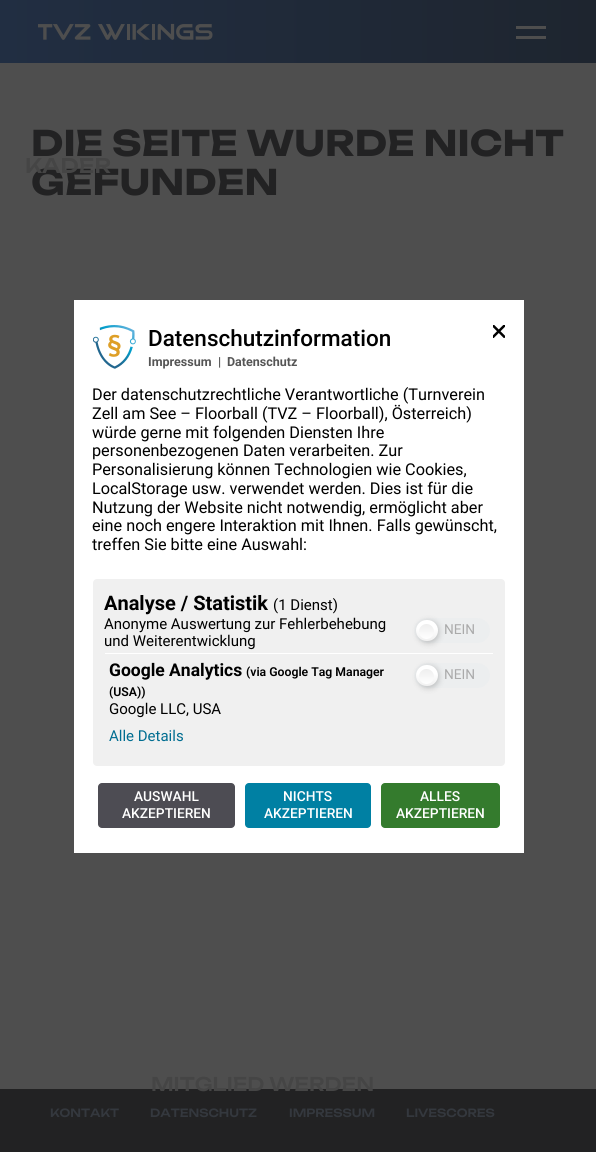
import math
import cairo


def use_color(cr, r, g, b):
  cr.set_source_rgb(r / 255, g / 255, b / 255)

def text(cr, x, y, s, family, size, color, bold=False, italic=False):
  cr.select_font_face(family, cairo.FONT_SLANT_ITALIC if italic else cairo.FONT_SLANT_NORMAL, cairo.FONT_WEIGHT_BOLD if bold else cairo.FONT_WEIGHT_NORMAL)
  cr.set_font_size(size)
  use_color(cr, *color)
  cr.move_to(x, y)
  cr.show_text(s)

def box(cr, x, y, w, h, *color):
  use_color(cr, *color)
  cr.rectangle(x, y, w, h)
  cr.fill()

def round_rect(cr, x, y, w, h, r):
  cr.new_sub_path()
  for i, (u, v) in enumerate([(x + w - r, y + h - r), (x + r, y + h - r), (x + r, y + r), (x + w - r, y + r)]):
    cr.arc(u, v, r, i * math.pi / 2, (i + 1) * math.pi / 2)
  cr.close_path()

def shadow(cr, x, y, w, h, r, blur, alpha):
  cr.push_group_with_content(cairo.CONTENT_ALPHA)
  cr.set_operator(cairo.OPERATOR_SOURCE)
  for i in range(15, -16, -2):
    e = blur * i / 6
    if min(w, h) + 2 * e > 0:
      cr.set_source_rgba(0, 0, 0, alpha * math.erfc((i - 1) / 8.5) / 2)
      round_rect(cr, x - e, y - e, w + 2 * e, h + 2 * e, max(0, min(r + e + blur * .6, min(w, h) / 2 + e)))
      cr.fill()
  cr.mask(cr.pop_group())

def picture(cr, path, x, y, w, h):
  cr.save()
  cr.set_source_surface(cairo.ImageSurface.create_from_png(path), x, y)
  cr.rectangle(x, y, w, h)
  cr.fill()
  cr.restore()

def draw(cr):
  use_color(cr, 78, 78, 78)
  cr.paint()
  gradient = cairo.LinearGradient(0, 31, 596, 31)
  gradient.add_color_stop_rgba(0, 0.129, 0.18, 0.259, 1)
  gradient.add_color_stop_rgba(1, 0.118, 0.145, 0.184, 1)
  cr.set_source(gradient)
  cr.rectangle(0, 0, 596, 63)
  cr.fill()
  picture(cr, "img_01.png", 38, 23, 175, 17)
  box(cr, 516, 26, 30, 3, 78, 78, 78)
  box(cr, 516, 36, 30, 3, 78, 78, 78)
  box(cr, 0, 1089, 596, 63, 34, 34, 35)
  box(cr, 74, 300, 450, 553, 255, 255, 255)
  picture(cr, "img_02.png", 93, 325, 43, 44)
  cr.save()
  cr.rectangle(493, 325, 12, 13)
  cr.clip()
  cr.new_path()
  cr.move_to(492.5, 325)
  cr.line_to(505, 337.5)
  cr.move_to(492.5, 337.5)
  cr.line_to(505, 325)
  use_color(cr, 0, 0, 0)
  cr.set_line_width(2.5)
  cr.stroke()
  cr.restore()
  use_color(cr, 240, 240, 240)
  round_rect(cr, 93, 579, 412, 187, 4)
  cr.fill()
  use_color(cr, 236, 238, 239)
  round_rect(cr, 414, 618, 76, 25, 12.5)
  cr.fill()
  use_color(cr, 0, 0, 0)
  shadow(cr, 418, 621, 21, 22, 10.5, 3, 0.2)
  gradient = cairo.LinearGradient(427, 620, 427, 641)
  gradient.add_color_stop_rgba(0.4, 1, 1, 1, 1)
  gradient.add_color_stop_rgba(1, 0.941, 0.941, 0.941, 1)
  cr.set_source(gradient)
  round_rect(cr, 416, 620, 22, 21, 10.5)
  cr.fill()
  gradient = cairo.LinearGradient(426, 624, 426, 639)
  gradient.add_color_stop_rgba(0, 0.933, 0.933, 0.933, 1)
  gradient.add_color_stop_rgba(1, 1, 1, 1, 1)
  cr.set_source(gradient)
  cr.arc(426.5, 631.5, 7.5, 0, 2 * math.pi)
  cr.fill()
  box(cr, 105, 653, 388, 1, 255, 255, 255)
  use_color(cr, 236, 238, 239)
  round_rect(cr, 414, 663, 76, 25, 12.5)
  cr.fill()
  use_color(cr, 0, 0, 0)
  shadow(cr, 418, 666, 21, 22, 10.5, 3, 0.2)
  gradient = cairo.LinearGradient(427, 665, 427, 686)
  gradient.add_color_stop_rgba(0.4, 1, 1, 1, 1)
  gradient.add_color_stop_rgba(1, 0.941, 0.941, 0.941, 1)
  cr.set_source(gradient)
  round_rect(cr, 416, 665, 22, 21, 10.5)
  cr.fill()
  gradient = cairo.LinearGradient(426, 669, 426, 684)
  gradient.add_color_stop_rgba(0, 0.933, 0.933, 0.933, 1)
  gradient.add_color_stop_rgba(1, 1, 1, 1, 1)
  cr.set_source(gradient)
  cr.arc(426.5, 676.5, 7.5, 0, 2 * math.pi)
  cr.fill()
  use_color(cr, 77, 76, 83)
  round_rect(cr, 98, 783, 137, 45, 4)
  cr.fill()
  use_color(cr, 0, 128, 163)
  round_rect(cr, 245, 783, 126, 45, 4)
  cr.fill()
  use_color(cr, 52, 123, 45)
  round_rect(cr, 381, 783, 119, 45, 4)
  cr.fill()
  text(cr, 31, 156, "DIE SEITE WURDE NICHT", "Unbounded", 35, (34, 34, 35), bold=True)
  text(cr, 31, 195, "GEFUNDEN", "Unbounded", 35, (34, 34, 35), bold=True)
  text(cr, 25, 173, "KADER", "Unbounded Medium", 20, (69, 69, 69))
  text(cr, 151, 1091, "MITGLIED WERDEN", "Unbounded Medium", 18.75, (69, 69, 69))
  text(cr, 50, 1117, "KONTAKT", "Unbounded Medium", 11.25, (52, 56, 62))
  text(cr, 150, 1117, "DATENSCHUTZ", "Unbounded Medium", 11.25, (52, 56, 62))
  text(cr, 289, 1117, "IMPRESSUM", "Unbounded Medium", 11.25, (52, 56, 62))
  text(cr, 406, 1117, "LIVESCORES", "Unbounded Medium", 11.25, (52, 56, 62))
  text(cr, 148, 346, "Datenschutzinformation", "Roboto Medium", 22.5, (0, 0, 0))
  text(cr, 148, 366, "Impressum", "Roboto", 12.5, (85, 85, 85), bold=True)
  text(cr, 218, 366, "|", "Roboto", 12.5, (85, 85, 85), bold=True)
  text(cr, 227, 366, "Datenschutz", "Roboto", 12.5, (85, 85, 85), bold=True)
  text(cr, 92, 400, "Der datenschutzrechtliche Verantwortliche (Turnverein", "Roboto", 16.25, (0, 0, 0))
  text(cr, 92, 419, "Zell am See – Floorball (TVZ – Floorball), Österreich)", "Roboto", 16.25, (0, 0, 0))
  text(cr, 92, 438, "würde gerne mit folgenden Diensten Ihre", "Roboto", 16.25, (0, 0, 0))
  text(cr, 92, 456, "personenbezogenen Daten verarbeiten. Zur", "Roboto", 16.25, (0, 0, 0))
  text(cr, 92, 475, "Personalisierung können Technologien wie Cookies,", "Roboto", 16.25, (0, 0, 0))
  text(cr, 92, 494, "LocalStorage usw. verwendet werden. Dies ist für die", "Roboto", 16.25, (0, 0, 0))
  text(cr, 92, 513, "Nutzung der Website nicht notwendig, ermöglicht aber", "Roboto", 16.25, (0, 0, 0))
  text(cr, 92, 531, "eine noch engere Interaktion mit Ihnen. Falls gewünscht,", "Roboto", 16.25, (0, 0, 0))
  text(cr, 92, 550, "treffen Sie bitte eine Auswahl:", "Roboto", 16.25, (0, 0, 0))
  text(cr, 104, 610, "Analyse / Statistik", "Roboto", 20, (0, 0, 0), bold=True)
  text(cr, 273, 610, "(1 Dienst)", "Roboto", 15, (0, 0, 0))
  text(cr, 104, 629, "Anonyme Auswertung zur Fehlerbehebung", "Roboto", 15, (0, 0, 0))
  text(cr, 104, 646, "und Weiterentwicklung", "Roboto", 15, (0, 0, 0))
  text(cr, 444, 634, "NEIN", "Roboto", 13.75, (170, 170, 170))
  text(cr, 109, 676, "Google Analytics", "Roboto", 17.5, (0, 0, 0), bold=True)
  text(cr, 246, 676, "(via Google Tag Manager", "Roboto SemiBold", 12.25, (0, 0, 0))
  text(cr, 109, 696, "(USA))", "Roboto SemiBold", 12.25, (0, 0, 0))
  text(cr, 109, 714, "Google LLC, USA", "Roboto", 15, (0, 0, 0))
  text(cr, 109, 741, "Alle Details", "Roboto", 15, (0, 109, 145))
  text(cr, 444, 679, "NEIN", "Roboto", 13.75, (170, 170, 170))
  text(cr, 134, 801, "AUSWAHL", "Roboto Medium", 13.75, (255, 255, 255))
  text(cr, 122, 818, "AKZEPTIEREN", "Roboto Medium", 13.75, (255, 255, 255))
  text(cr, 283, 801, "NICHTS", "Roboto Medium", 13.75, (255, 255, 255))
  text(cr, 264, 818, "AKZEPTIEREN", "Roboto Medium", 13.75, (255, 255, 255))
  text(cr, 420, 801, "ALLES", "Roboto Medium", 13.75, (255, 255, 255))
  text(cr, 396, 818, "AKZEPTIEREN", "Roboto Medium", 13.75, (255, 255, 255))


surface = cairo.ImageSurface(cairo.FORMAT_RGB24, 596, 1152)
cr = cairo.Context(surface)
options = cairo.FontOptions()
options.set_hint_metrics(cairo.HINT_METRICS_OFF)
options.set_hint_style(cairo.HINT_STYLE_NONE)
cr.set_font_options(options)
cr.set_miter_limit(4)
draw(cr)
surface.write_to_png("out.png")
